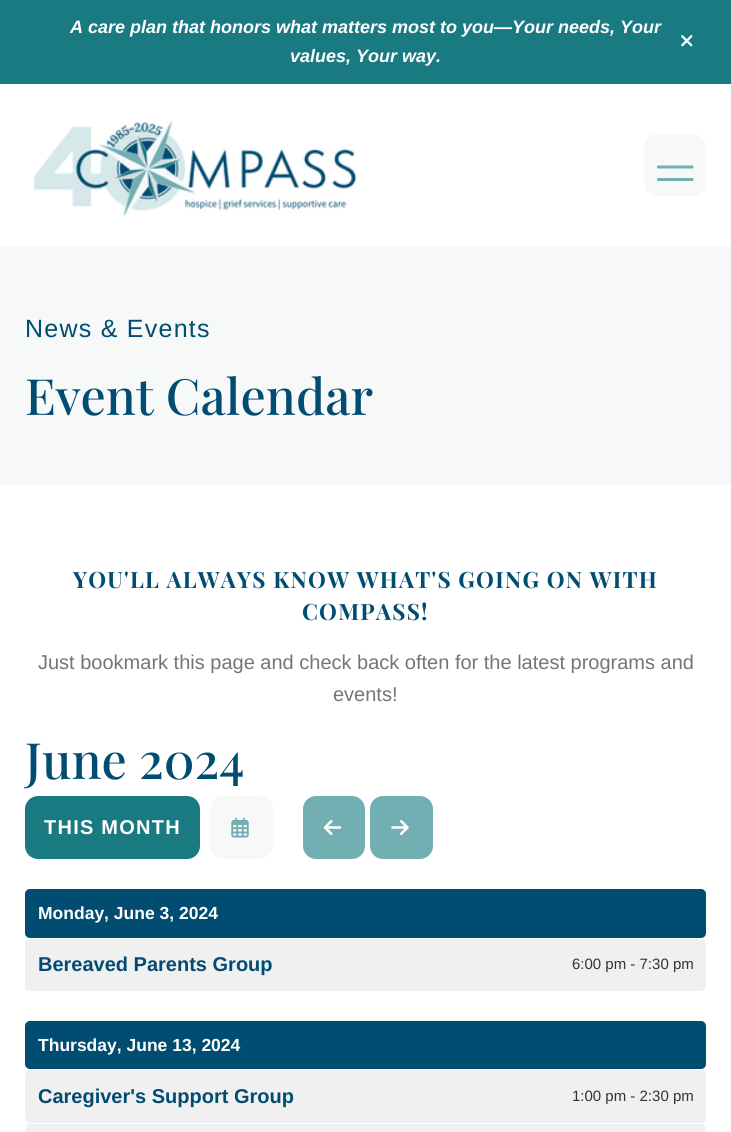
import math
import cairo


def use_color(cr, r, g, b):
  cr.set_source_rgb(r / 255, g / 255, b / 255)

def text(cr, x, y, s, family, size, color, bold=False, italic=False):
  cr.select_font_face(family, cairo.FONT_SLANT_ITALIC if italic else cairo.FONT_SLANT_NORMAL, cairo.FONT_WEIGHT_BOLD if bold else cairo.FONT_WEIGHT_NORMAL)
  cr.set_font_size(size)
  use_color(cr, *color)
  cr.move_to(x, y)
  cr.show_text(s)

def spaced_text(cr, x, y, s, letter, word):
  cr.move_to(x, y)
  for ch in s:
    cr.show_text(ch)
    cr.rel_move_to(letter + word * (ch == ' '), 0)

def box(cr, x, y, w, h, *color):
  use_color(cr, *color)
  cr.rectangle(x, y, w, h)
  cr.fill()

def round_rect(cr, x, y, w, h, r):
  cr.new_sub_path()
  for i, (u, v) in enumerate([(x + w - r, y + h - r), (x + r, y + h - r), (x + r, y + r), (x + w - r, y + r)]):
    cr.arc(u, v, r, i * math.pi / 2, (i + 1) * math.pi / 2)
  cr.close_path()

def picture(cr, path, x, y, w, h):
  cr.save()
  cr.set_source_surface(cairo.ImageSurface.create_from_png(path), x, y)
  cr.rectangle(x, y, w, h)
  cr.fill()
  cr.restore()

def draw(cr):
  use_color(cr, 255, 255, 255)
  cr.paint()
  box(cr, 0, 0, 731, 84, 26, 122, 130)
  picture(cr, "img_01.png", 681, 35, 12, 12)
  picture(cr, "img_02.png", 33, 120, 324, 95)
  use_color(cr, 247, 249, 249)
  round_rect(cr, 644, 134, 62, 62, 13)
  cr.fill()
  picture(cr, "img_03.png", 656, 162, 38, 19)
  box(cr, 0, 246, 731, 239, 247, 249, 249)
  use_color(cr, 26, 122, 130)
  round_rect(cr, 25, 796, 175, 63, 13)
  cr.fill()
  use_color(cr, 247, 249, 249)
  round_rect(cr, 210, 796, 63, 63, 13)
  cr.fill()
  picture(cr, "img_04.png", 231, 817, 18, 21)
  use_color(cr, 114, 175, 179)
  round_rect(cr, 303, 796, 62, 63, 13)
  cr.fill()
  picture(cr, "img_05.png", 323, 820, 19, 15)
  round_rect(cr, 370, 796, 63, 63, 13)
  cr.fill()
  picture(cr, "img_06.png", 391, 820, 18, 15)
  use_color(cr, 1, 76, 113)
  round_rect(cr, 25, 889, 681, 49, 5)
  cr.fill()
  use_color(cr, 240, 240, 240)
  round_rect(cr, 25, 939, 681, 52, 5)
  cr.fill()
  use_color(cr, 1, 76, 113)
  round_rect(cr, 25, 1021, 681, 48, 5)
  cr.fill()
  use_color(cr, 240, 240, 240)
  round_rect(cr, 25, 1070, 681, 53, 5)
  cr.fill()
  round_rect(cr, 25, 1124, 681, 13, 5)
  cr.fill()
  text(cr, 70, 33, "A care plan that honors what matters most to you—Your needs, Your", "Liberation Sans", 18, (255, 255, 255), bold=True, italic=True)
  text(cr, 290, 62, "values, Your way.", "Liberation Sans", 18, (255, 255, 255), bold=True, italic=True)
  cr.select_font_face("Liberation Sans")
  cr.set_font_size(25)
  use_color(cr, 1, 76, 113)
  spaced_text(cr, 25, 337, "News & Events", 1.25, 0)
  text(cr, 25, 415, "Event Calendar", "Playfair Display Medium", 50, (1, 76, 113))
  cr.select_font_face("Playfair Display", cairo.FONT_SLANT_NORMAL, cairo.FONT_WEIGHT_BOLD)
  cr.set_font_size(22.5)
  spaced_text(cr, 73, 588, "YOU'LL ALWAYS KNOW WHAT'S GOING ON WITH", 1.25, 0)
  spaced_text(cr, 302, 620, "COMPASS!", 1.25, 0)
  text(cr, 38, 669, "Just bookmark this page and check back often for the latest programs and", "Liberation Sans", 20, (117, 117, 117))
  text(cr, 333, 701, "events!", "Liberation Sans", 20, (117, 117, 117))
  text(cr, 25, 779, "June 2024", "Playfair Display Medium", 50, (1, 76, 113))
  cr.select_font_face("Liberation Sans", cairo.FONT_SLANT_NORMAL, cairo.FONT_WEIGHT_BOLD)
  cr.set_font_size(20)
  use_color(cr, 255, 255, 255)
  spaced_text(cr, 44, 834, "THIS MONTH", 1.25, 0)
  text(cr, 38, 919, "Monday, June 3, 2024", "Liberation Sans", 17.5, (255, 255, 255), bold=True)
  text(cr, 38, 971, "Bereaved Parents Group", "Liberation Sans", 20, (1, 76, 113), bold=True)
  text(cr, 572, 969, "6:00 pm - 7:30 pm", "Liberation Sans", 15, (51, 51, 51))
  text(cr, 38, 1051, "Thursday, June 13, 2024", "Liberation Sans", 17.5, (255, 255, 255), bold=True)
  text(cr, 38, 1103, "Caregiver's Support Group", "Liberation Sans", 20, (1, 76, 113), bold=True)
  text(cr, 572, 1101, "1:00 pm - 2:30 pm", "Liberation Sans", 15, (51, 51, 51))


surface = cairo.ImageSurface(cairo.FORMAT_RGB24, 731, 1132)
cr = cairo.Context(surface)
options = cairo.FontOptions()
options.set_hint_metrics(cairo.HINT_METRICS_OFF)
options.set_hint_style(cairo.HINT_STYLE_NONE)
cr.set_font_options(options)
cr.set_miter_limit(4)
draw(cr)
surface.write_to_png("out.png")
